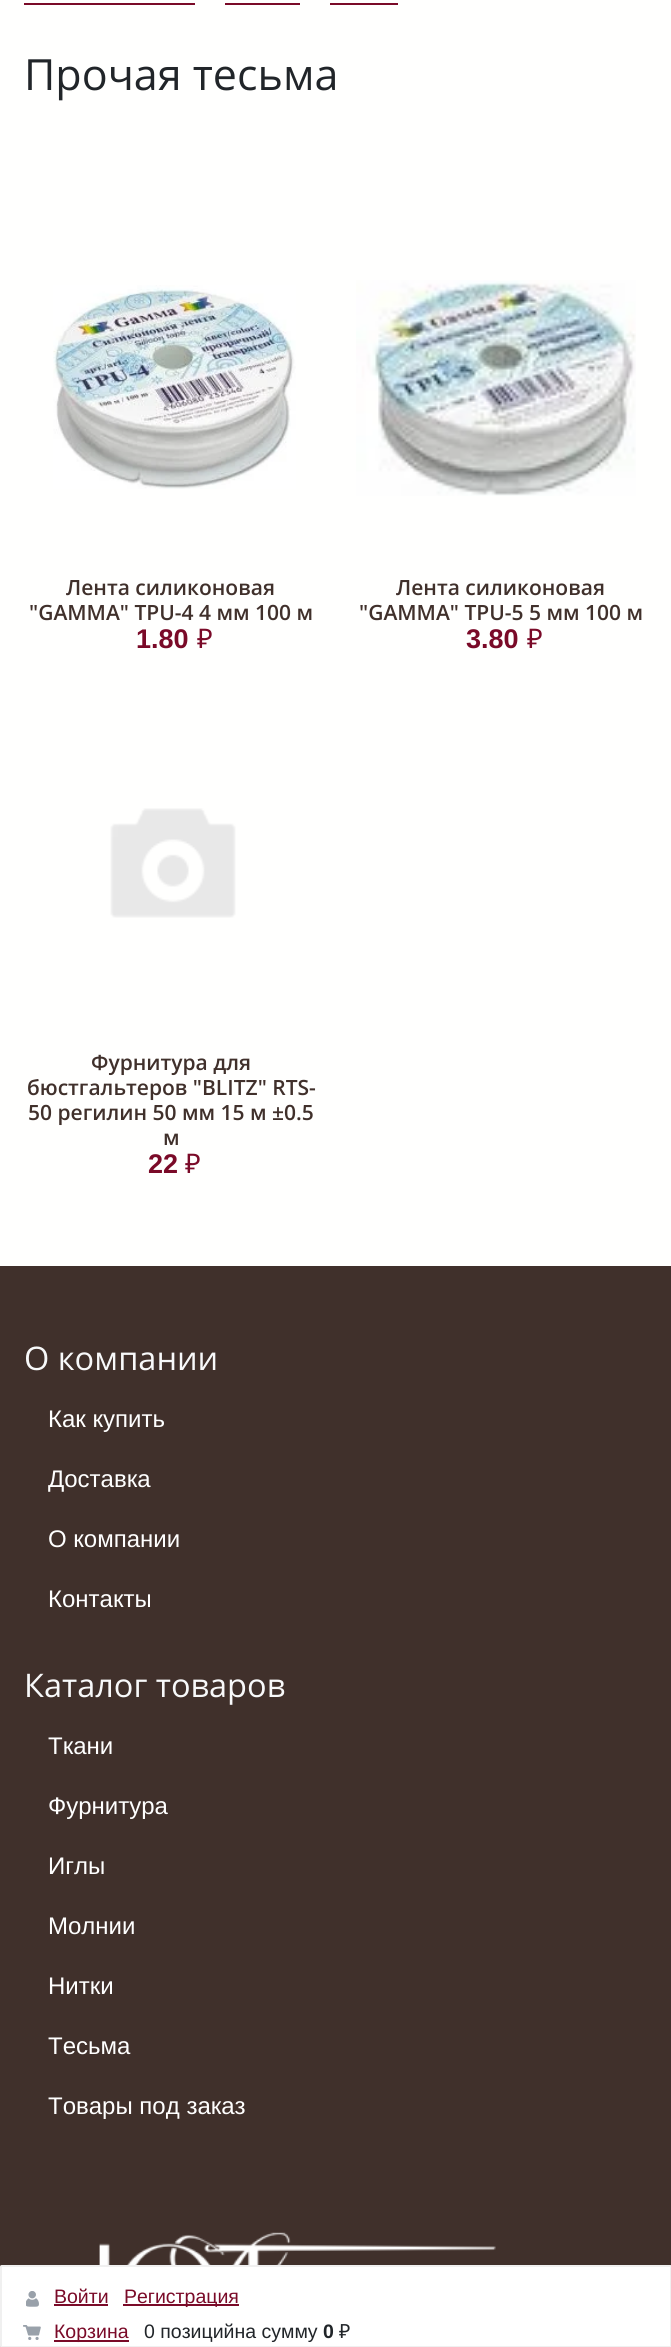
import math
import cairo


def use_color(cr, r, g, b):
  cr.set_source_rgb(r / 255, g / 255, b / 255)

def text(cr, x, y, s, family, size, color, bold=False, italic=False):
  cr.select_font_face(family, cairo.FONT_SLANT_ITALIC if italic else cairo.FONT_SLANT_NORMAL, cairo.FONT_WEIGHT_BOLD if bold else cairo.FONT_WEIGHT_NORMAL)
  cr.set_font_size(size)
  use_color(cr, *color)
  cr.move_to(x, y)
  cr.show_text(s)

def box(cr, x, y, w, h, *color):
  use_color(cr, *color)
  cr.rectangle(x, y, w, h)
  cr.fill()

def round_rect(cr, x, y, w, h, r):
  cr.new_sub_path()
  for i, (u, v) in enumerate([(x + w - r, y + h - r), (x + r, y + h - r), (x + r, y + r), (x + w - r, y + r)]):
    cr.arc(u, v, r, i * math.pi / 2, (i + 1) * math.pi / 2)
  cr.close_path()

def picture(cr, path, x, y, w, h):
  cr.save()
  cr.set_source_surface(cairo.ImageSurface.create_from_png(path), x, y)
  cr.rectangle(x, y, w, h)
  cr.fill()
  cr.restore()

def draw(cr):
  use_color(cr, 255, 255, 254)
  cr.paint()
  box(cr, 24, 3, 171, 2, 122, 10, 40)
  box(cr, 225, 3, 75, 2, 122, 10, 40)
  box(cr, 330, 3, 68, 2, 122, 10, 40)
  picture(cr, "img_01.png", 53, 285, 243, 204)
  picture(cr, "img_02.png", 356, 280, 280, 216)
  picture(cr, "img_03.png", 110, 808, 126, 110)
  box(cr, 0, 1266, 671, 1081, 64, 48, 43)
  picture(cr, "img_04.png", 99, 2232, 397, 33)
  use_color(cr, 255, 255, 255)
  round_rect(cr, 1, 2266, 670, 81, 0.5)
  cr.fill_preserve()
  use_color(cr, 240, 240, 240)
  cr.stroke()
  picture(cr, "img_05.png", 26, 2291, 13, 16)
  box(cr, 54, 2304, 54, 2, 122, 10, 40)
  box(cr, 123, 2304, 116, 2, 122, 10, 40)
  picture(cr, "img_06.png", 23, 2325, 18, 15)
  box(cr, 54, 2340, 75, 2, 122, 10, 40)
  text(cr, 24, 90, "Прочая тесьма", "Open Sans", 43, (33, 37, 41))
  text(cr, 66, 595, "Лента силиконовая", "Open Sans SemiBold", 21, (64, 48, 43))
  text(cr, 29, 620, "\"GAMMA\" TPU-4 4 мм 100 м", "Open Sans SemiBold", 21, (64, 48, 43))
  text(cr, 136, 648, "1.80", "Liberation Sans", 27, (122, 10, 40), bold=True)
  text(cr, 197, 648, "₽", "Noto Sans", 27, (122, 10, 40))
  text(cr, 396, 595, "Лента силиконовая", "Open Sans SemiBold", 21, (64, 48, 43))
  text(cr, 359, 620, "\"GAMMA\" TPU-5 5 мм 100 м", "Open Sans SemiBold", 21, (64, 48, 43))
  text(cr, 466, 648, "3.80", "Liberation Sans", 27, (122, 10, 40), bold=True)
  text(cr, 527, 648, "₽", "Noto Sans", 27, (122, 10, 40))
  text(cr, 91, 1070, "Фурнитура для", "Open Sans SemiBold", 21, (64, 48, 43))
  text(cr, 27, 1095, "бюстгальтеров \"BLITZ\" RTS-", "Open Sans SemiBold", 21, (64, 48, 43))
  text(cr, 28, 1120, "50 регилин 50 мм 15 м ±0.5", "Open Sans SemiBold", 21, (64, 48, 43))
  text(cr, 163, 1145, "м", "Open Sans SemiBold", 21, (64, 48, 43))
  text(cr, 148, 1173, "22", "Liberation Sans", 27, (122, 10, 40), bold=True)
  text(cr, 185, 1173, "₽", "Noto Sans", 27, (122, 10, 40))
  text(cr, 24, 1370, "О компании", "Open Sans", 32.5, (248, 249, 250))
  text(cr, 48, 1427, "Как купить", "Liberation Sans", 24, (255, 255, 255))
  text(cr, 48, 1487, "Доставка", "Liberation Sans", 24, (255, 255, 255))
  text(cr, 48, 1547, "О компании", "Liberation Sans", 24, (255, 255, 255))
  text(cr, 48, 1607, "Контакты", "Liberation Sans", 24, (255, 255, 255))
  text(cr, 24, 1697, "Каталог товаров", "Open Sans", 32.5, (248, 249, 250))
  text(cr, 48, 1754, "Ткани", "Liberation Sans", 24, (255, 255, 255))
  text(cr, 48, 1814, "Фурнитура", "Liberation Sans", 24, (255, 255, 255))
  text(cr, 48, 1874, "Иглы", "Liberation Sans", 24, (255, 255, 255))
  text(cr, 48, 1934, "Молнии", "Liberation Sans", 24, (255, 255, 255))
  text(cr, 48, 1994, "Нитки", "Liberation Sans", 24, (255, 255, 255))
  text(cr, 48, 2054, "Тесьма", "Liberation Sans", 24, (255, 255, 255))
  text(cr, 48, 2114, "Товары под заказ", "Liberation Sans", 24, (255, 255, 255))
  text(cr, 54, 2303, "Войти", "Liberation Sans", 19.5, (122, 10, 40))
  text(cr, 124, 2303, "Регистрация", "Liberation Sans", 19.5, (122, 10, 40))
  text(cr, 54, 2338, "Корзина", "Liberation Sans", 19.5, (122, 10, 40))
  text(cr, 144, 2338, "0 позицийна сумму", "Liberation Sans", 19.5, (33, 37, 41))
  text(cr, 323, 2338, "0", "Liberation Sans", 19.5, (33, 37, 41), bold=True)
  text(cr, 339, 2338, "₽", "Noto Sans", 19.5, (33, 37, 41))


surface = cairo.ImageSurface(cairo.FORMAT_RGB24, 671, 2347)
cr = cairo.Context(surface)
options = cairo.FontOptions()
options.set_hint_metrics(cairo.HINT_METRICS_OFF)
options.set_hint_style(cairo.HINT_STYLE_NONE)
cr.set_font_options(options)
cr.set_miter_limit(4)
draw(cr)
surface.write_to_png("out.png")
